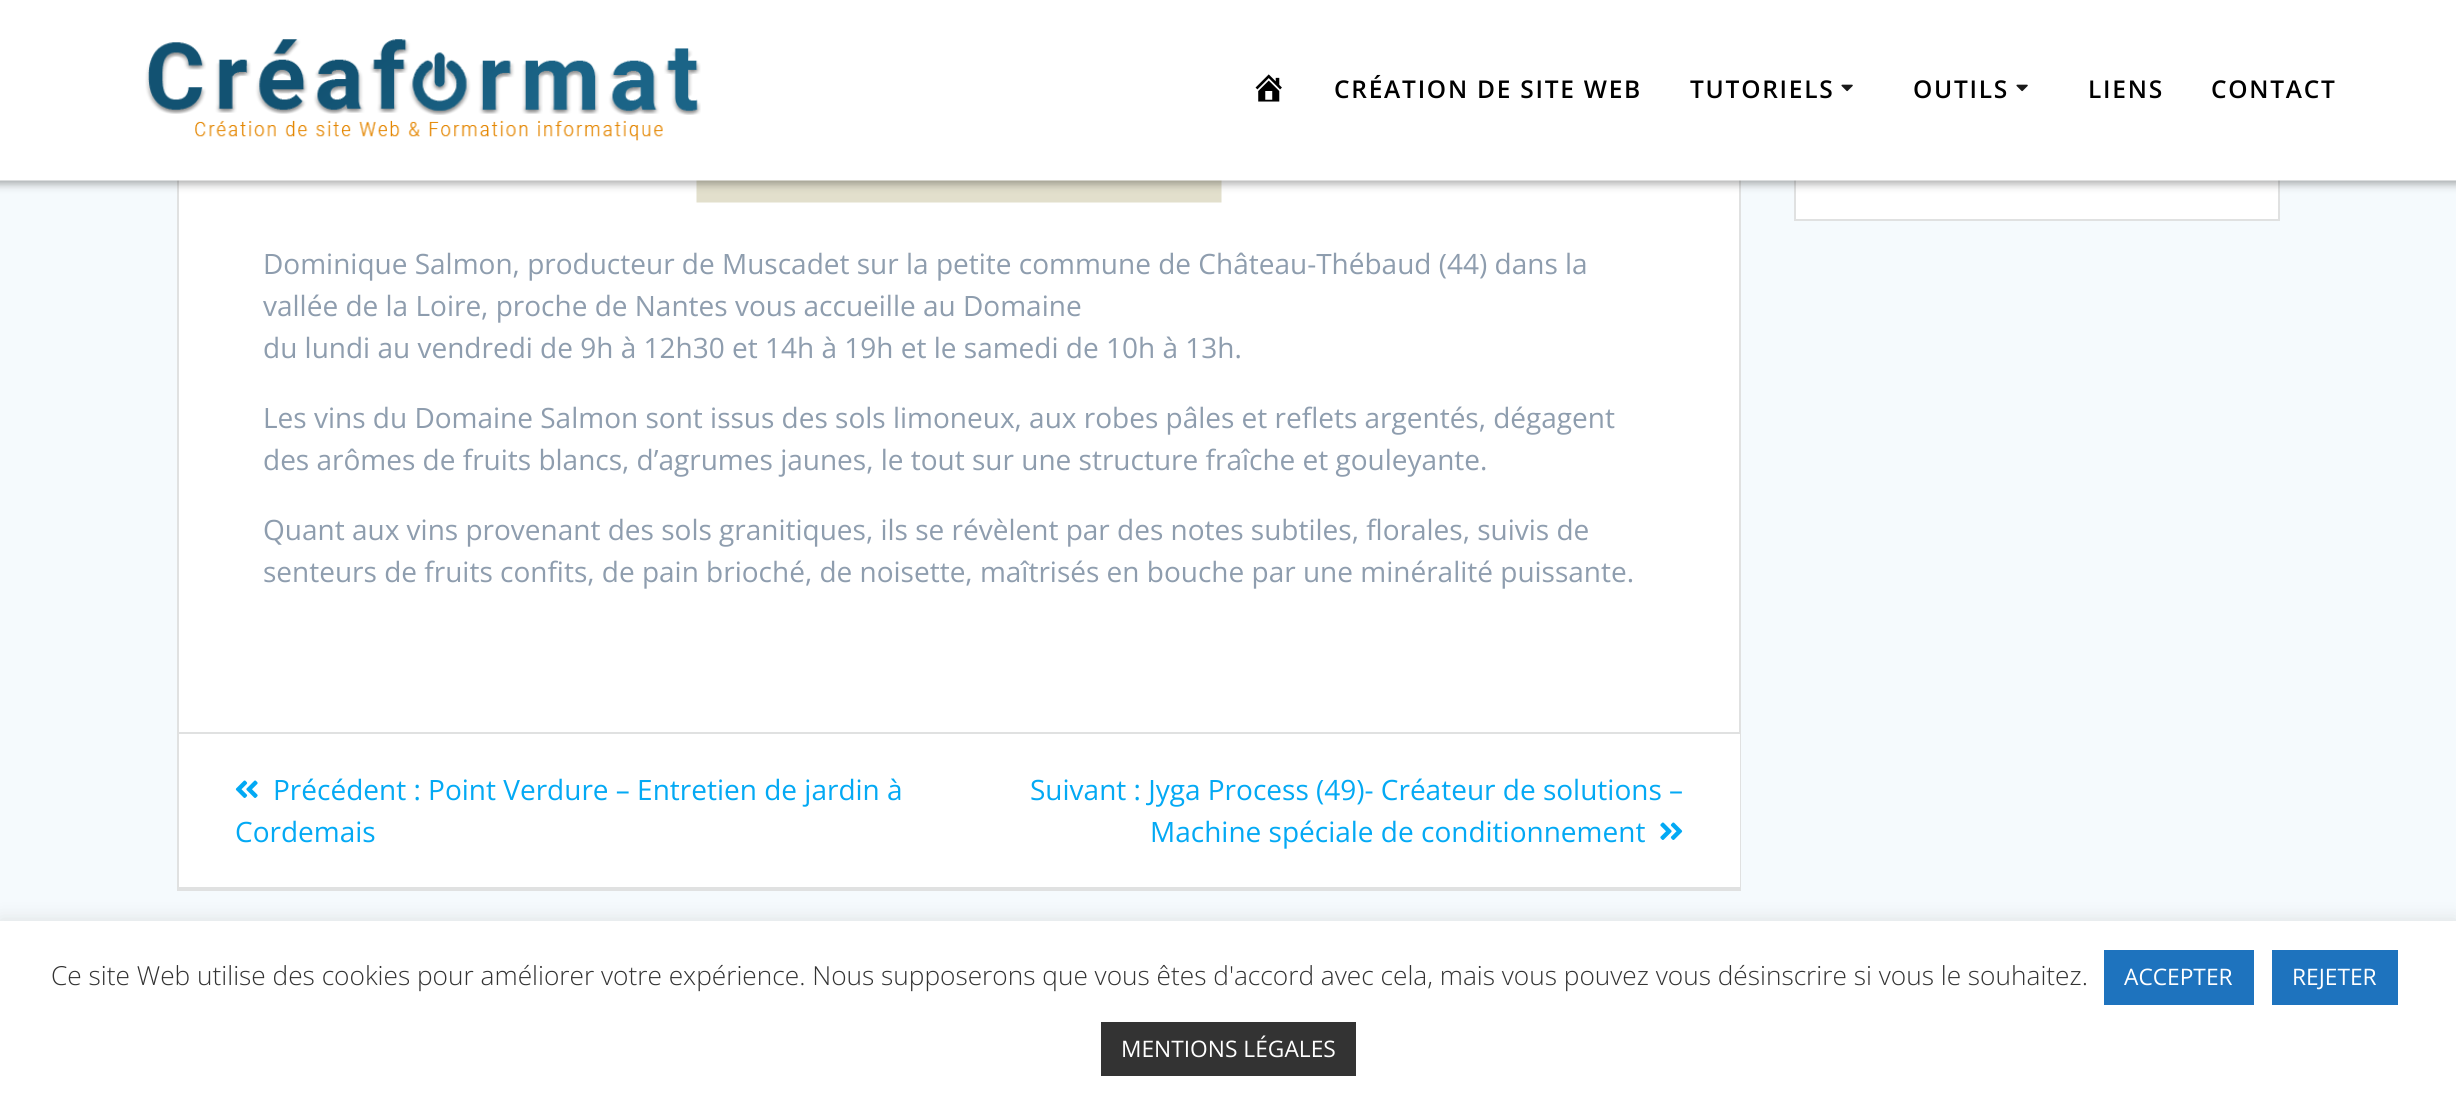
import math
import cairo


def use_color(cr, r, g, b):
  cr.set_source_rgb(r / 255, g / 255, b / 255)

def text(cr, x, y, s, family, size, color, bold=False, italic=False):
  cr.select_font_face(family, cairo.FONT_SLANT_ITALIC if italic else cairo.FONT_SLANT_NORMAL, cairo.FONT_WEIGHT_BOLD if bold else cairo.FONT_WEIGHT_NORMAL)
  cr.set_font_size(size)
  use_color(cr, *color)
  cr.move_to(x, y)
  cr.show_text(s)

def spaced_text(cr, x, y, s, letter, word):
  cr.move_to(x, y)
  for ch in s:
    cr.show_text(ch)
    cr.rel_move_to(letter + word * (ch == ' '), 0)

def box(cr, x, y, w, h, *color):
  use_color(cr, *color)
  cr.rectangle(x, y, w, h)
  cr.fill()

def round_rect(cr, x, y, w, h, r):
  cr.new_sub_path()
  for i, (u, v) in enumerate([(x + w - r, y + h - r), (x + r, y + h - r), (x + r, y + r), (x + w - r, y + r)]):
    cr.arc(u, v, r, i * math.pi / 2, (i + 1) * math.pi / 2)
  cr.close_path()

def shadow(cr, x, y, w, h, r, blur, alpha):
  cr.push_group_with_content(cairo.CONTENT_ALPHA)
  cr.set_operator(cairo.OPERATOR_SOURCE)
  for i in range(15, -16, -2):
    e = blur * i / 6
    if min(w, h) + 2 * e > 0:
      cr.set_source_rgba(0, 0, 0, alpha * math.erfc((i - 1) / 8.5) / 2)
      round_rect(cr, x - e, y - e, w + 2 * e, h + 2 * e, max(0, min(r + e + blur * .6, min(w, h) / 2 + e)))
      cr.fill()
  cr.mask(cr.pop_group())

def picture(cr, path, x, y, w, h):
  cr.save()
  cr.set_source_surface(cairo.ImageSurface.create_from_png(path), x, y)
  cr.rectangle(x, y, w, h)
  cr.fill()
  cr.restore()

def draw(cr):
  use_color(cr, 245, 250, 253)
  cr.paint()
  box(cr, 1796, 180, 482, 39, 255, 255, 255)
  cr.rectangle(1795, 162, 484, 58)
  use_color(cr, 224, 225, 225)
  cr.stroke()
  box(cr, 179, 180, 1560, 552, 255, 255, 255)
  cr.rectangle(178, -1, 1562, 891)
  use_color(cr, 224, 225, 225)
  cr.stroke()
  picture(cr, "img_04.png", 696, 180, 526, 23)
  use_color(cr, 0, 0, 0)
  shadow(cr, -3, -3, 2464, 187, 0, 4.5, 0.33)
  box(cr, 0, 0, 2456, 180, 255, 255, 255)
  cr.set_source_rgba(1, 1, 1, 0.5)
  cr.rectangle(0, 180, 2456, 1)
  cr.fill()
  picture(cr, "img_01.png", 145, 39, 556, 102)
  picture(cr, "img_02.png", 1255, 74, 27, 28)
  picture(cr, "img_03.png", 1841, 84, 12, 8)
  picture(cr, "img_03.png", 2016, 84, 12, 8)
  box(cr, 179, 734, 1561, 153, 255, 255, 255)
  box(cr, 179, 732, 1561, 2, 224, 225, 225)
  box(cr, 179, 887, 1561, 2, 224, 225, 225)
  picture(cr, "img_05.png", 235, 780, 23, 18)
  picture(cr, "img_06.png", 1660, 822, 23, 18)
  use_color(cr, 172, 171, 171)
  shadow(cr, 0, 919, 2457, 185, 0, 9, 0.3)
  box(cr, 0, 921, 2456, 184, 255, 255, 255)
  box(cr, 2104, 950, 150, 55, 30, 115, 190)
  box(cr, 2272, 950, 126, 55, 30, 115, 190)
  box(cr, 1101, 1022, 255, 54, 51, 51, 51)
  cr.select_font_face("Open Sans SemiBold")
  cr.set_font_size(24.5)
  use_color(cr, 0, 0, 0)
  spaced_text(cr, 1334, 98, "CRÉATION DE SITE WEB", 1.75, 0)
  spaced_text(cr, 1690, 98, "TUTORIELS", 1.75, 0)
  spaced_text(cr, 1913, 98, "OUTILS", 1.75, 0)
  spaced_text(cr, 2088, 98, "LIENS", 1.75, 0)
  spaced_text(cr, 2211, 98, "CONTACT", 1.75, 0)
  text(cr, 263, 274, "Dominique Salmon, producteur de Muscadet sur la petite commune de Château-Thébaud (44) dans la", "Open Sans", 28, (142, 157, 174))
  text(cr, 263, 316, "vallée de la Loire, proche de Nantes vous accueille au Domaine", "Open Sans", 28, (142, 157, 174))
  text(cr, 263, 358, "du lundi au vendredi de 9h à 12h30 et 14h à 19h et le samedi de 10h à 13h.", "Open Sans", 28, (142, 157, 174))
  text(cr, 263, 428, "Les vins du Domaine Salmon sont issus des sols limoneux, aux robes pâles et reflets argentés, dégagent", "Open Sans", 28, (142, 157, 174))
  text(cr, 263, 470, "des arômes de fruits blancs, d’agrumes jaunes, le tout sur une structure fraîche et gouleyante.", "Open Sans", 28, (142, 157, 174))
  text(cr, 263, 540, "Quant aux vins provenant des sols granitiques, ils se révèlent par des notes subtiles, florales, suivis de", "Open Sans", 28, (142, 157, 174))
  text(cr, 263, 582, "senteurs de fruits confits, de pain brioché, de noisette, maîtrisés en bouche par une minéralité puissante.", "Open Sans", 28, (142, 157, 174))
  text(cr, 273, 800, "Précédent : Point Verdure – Entretien de jardin à", "Open Sans", 28, (3, 169, 244))
  text(cr, 235, 842, "Cordemais", "Open Sans", 28, (3, 169, 244))
  text(cr, 1030, 800, "Suivant : Jyga Process (49)- Créateur de solutions –", "Open Sans", 28, (3, 169, 244))
  text(cr, 1150, 842, "Machine spéciale de conditionnement", "Open Sans", 28, (3, 169, 244))
  text(cr, 51, 985, "Ce site Web utilise des cookies pour améliorer votre expérience. Nous supposerons que vous êtes d'accord avec cela, mais vous pouvez vous désinscrire si vous le souhaitez.", "Open Sans Light", 26.25, (51, 51, 51))
  text(cr, 2124, 985, "ACCEPTER", "Open Sans", 22.75, (255, 255, 255))
  text(cr, 2292, 985, "REJETER", "Open Sans", 22.75, (255, 255, 255))
  text(cr, 1121, 1057, "MENTIONS LÉGALES", "Open Sans", 22.75, (255, 255, 255))


surface = cairo.ImageSurface(cairo.FORMAT_RGB24, 2456, 1105)
cr = cairo.Context(surface)
options = cairo.FontOptions()
options.set_hint_metrics(cairo.HINT_METRICS_OFF)
options.set_hint_style(cairo.HINT_STYLE_NONE)
cr.set_font_options(options)
cr.set_miter_limit(4)
draw(cr)
surface.write_to_png("out.png")
